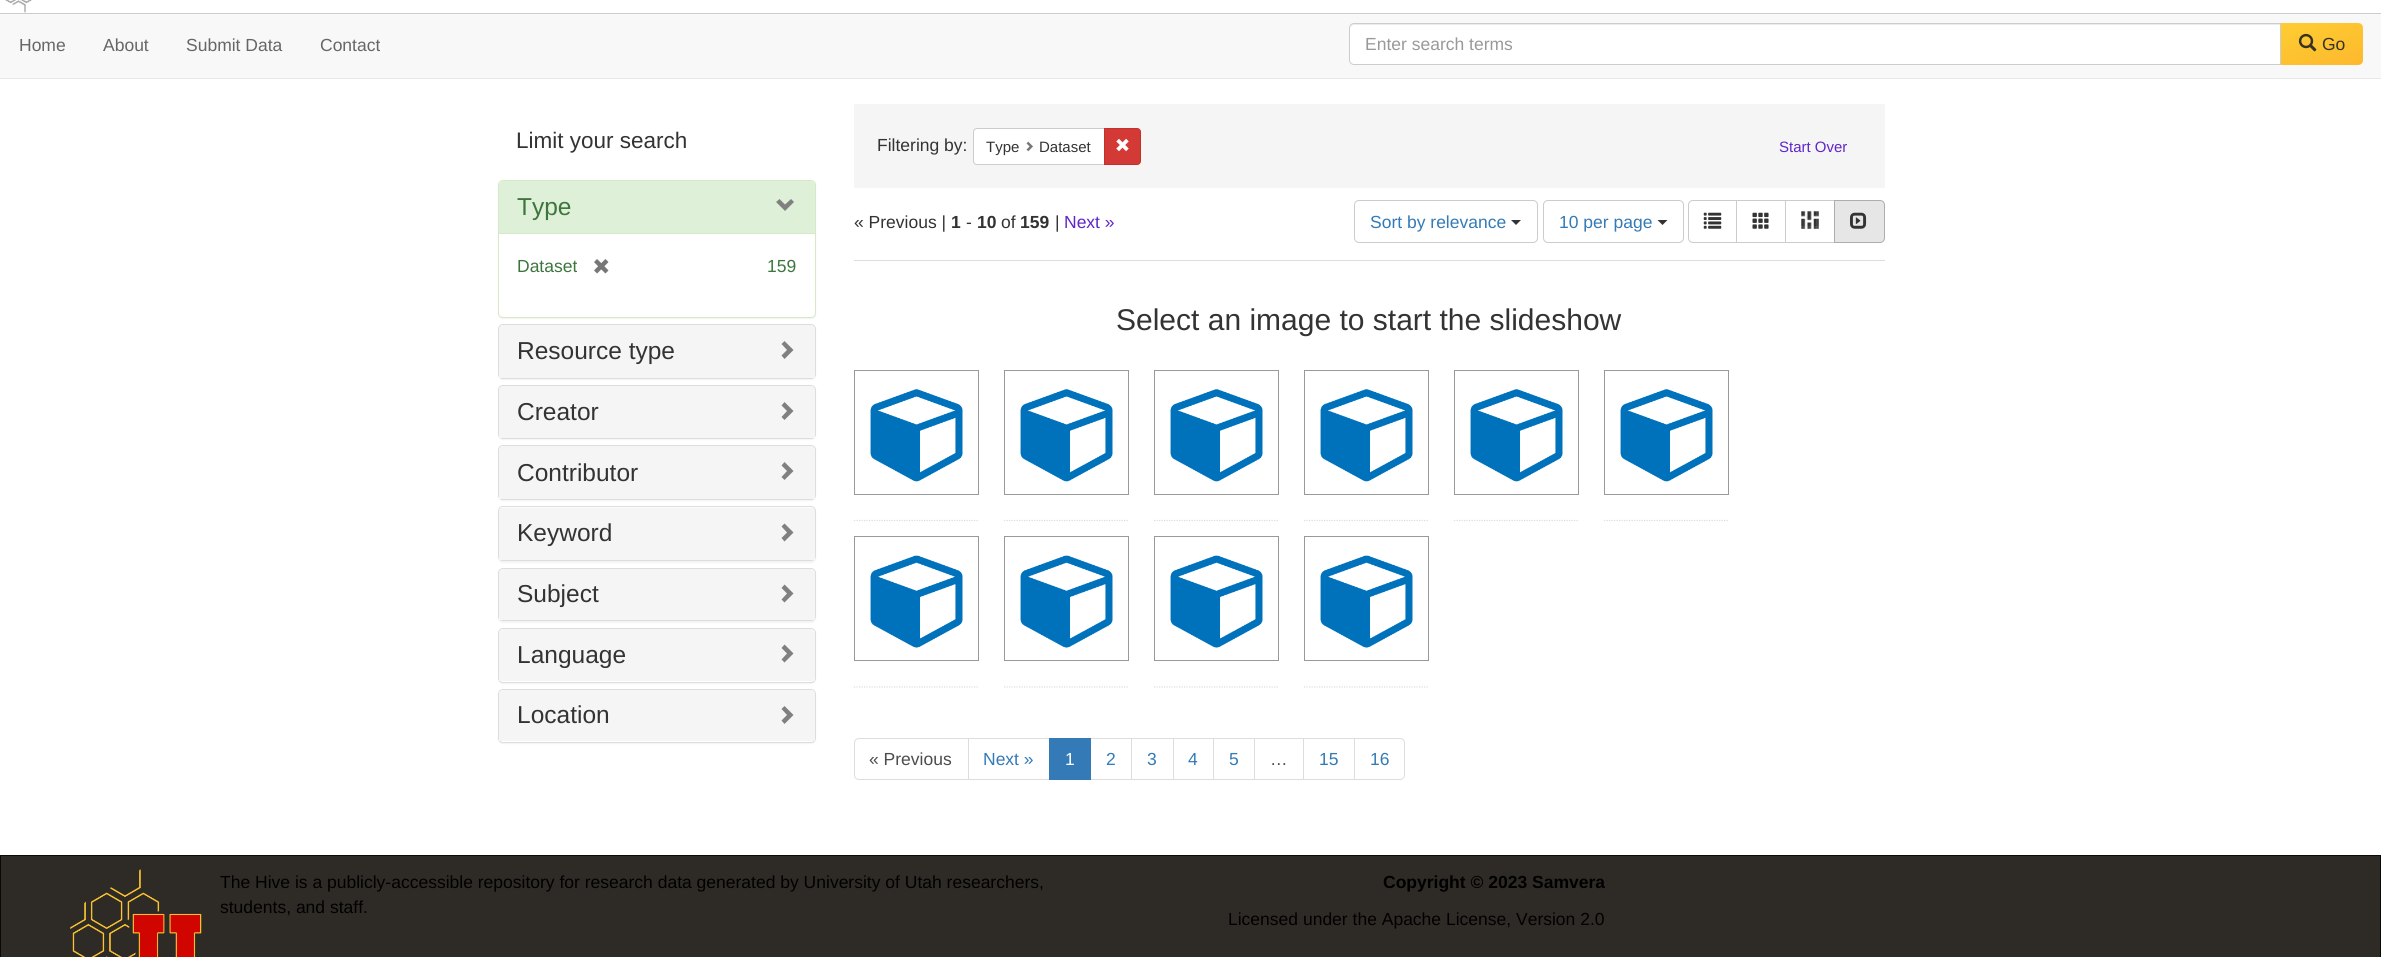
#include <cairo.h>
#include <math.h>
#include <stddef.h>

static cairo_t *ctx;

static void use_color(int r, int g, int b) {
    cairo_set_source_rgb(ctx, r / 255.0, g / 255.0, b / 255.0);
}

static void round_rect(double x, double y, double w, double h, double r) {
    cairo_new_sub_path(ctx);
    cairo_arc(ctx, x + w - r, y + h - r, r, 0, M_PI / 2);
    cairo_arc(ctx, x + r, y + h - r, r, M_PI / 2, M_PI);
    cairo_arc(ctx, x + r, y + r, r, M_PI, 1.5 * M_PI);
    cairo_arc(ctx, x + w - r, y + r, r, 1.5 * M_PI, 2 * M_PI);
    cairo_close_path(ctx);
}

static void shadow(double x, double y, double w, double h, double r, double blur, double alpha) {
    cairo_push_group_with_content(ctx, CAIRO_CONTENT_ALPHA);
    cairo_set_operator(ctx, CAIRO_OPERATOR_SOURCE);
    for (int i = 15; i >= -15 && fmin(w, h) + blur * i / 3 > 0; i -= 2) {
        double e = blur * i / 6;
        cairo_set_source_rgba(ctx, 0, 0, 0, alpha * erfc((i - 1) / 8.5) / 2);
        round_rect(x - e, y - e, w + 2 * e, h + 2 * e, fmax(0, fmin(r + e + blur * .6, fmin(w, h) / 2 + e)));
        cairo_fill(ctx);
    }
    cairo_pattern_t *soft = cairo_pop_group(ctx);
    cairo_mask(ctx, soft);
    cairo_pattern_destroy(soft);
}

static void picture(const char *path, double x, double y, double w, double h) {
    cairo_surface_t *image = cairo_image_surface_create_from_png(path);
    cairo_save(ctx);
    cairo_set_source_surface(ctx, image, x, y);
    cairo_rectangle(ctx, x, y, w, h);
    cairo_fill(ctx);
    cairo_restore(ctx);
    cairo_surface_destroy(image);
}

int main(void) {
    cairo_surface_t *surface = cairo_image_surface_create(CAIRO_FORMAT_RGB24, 2381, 957);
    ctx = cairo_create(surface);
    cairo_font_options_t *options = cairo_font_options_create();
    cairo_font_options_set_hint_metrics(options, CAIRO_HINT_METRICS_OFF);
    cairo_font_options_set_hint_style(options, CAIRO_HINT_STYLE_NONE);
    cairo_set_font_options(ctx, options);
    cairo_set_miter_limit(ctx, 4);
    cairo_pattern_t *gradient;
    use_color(255, 255, 255);
    cairo_paint(ctx);
    use_color(204, 204, 204);
    cairo_rectangle(ctx, 0, 13, 2381, 1);
    cairo_fill(ctx);
    picture("img1.png", 5, 0, 27, 13);
    use_color(248, 248, 248);
    cairo_rectangle(ctx, 0, 14, 2381, 64);
    cairo_fill(ctx);
    use_color(231, 231, 231);
    cairo_rectangle(ctx, 0, 78, 2381, 1);
    cairo_fill(ctx);
    cairo_select_font_face(ctx, "Liberation Sans", CAIRO_FONT_SLANT_NORMAL, CAIRO_FONT_WEIGHT_NORMAL);
    cairo_set_font_size(ctx, 17.5);
    use_color(102, 102, 102);
    cairo_move_to(ctx, 19, 51);
    cairo_show_text(ctx, "Home");
    cairo_move_to(ctx, 103, 51);
    cairo_show_text(ctx, "About");
    cairo_move_to(ctx, 186, 51);
    cairo_show_text(ctx, "Submit Data");
    cairo_move_to(ctx, 320, 51);
    cairo_show_text(ctx, "Contact");
    use_color(255, 255, 255);
    cairo_new_path(ctx);
    cairo_move_to(ctx, 1354, 23);
    cairo_line_to(ctx, 2281, 23);
    cairo_line_to(ctx, 2281, 65);
    cairo_line_to(ctx, 1354, 65);
    cairo_curve_to(ctx, 1351, 65, 1349, 63, 1349, 60);
    cairo_line_to(ctx, 1349, 28);
    cairo_curve_to(ctx, 1349, 25, 1351, 23, 1354, 23);
    cairo_close_path(ctx);
    cairo_fill(ctx);
    use_color(236, 236, 236);
    cairo_new_path(ctx);
    cairo_move_to(ctx, 1354, 25);
    cairo_line_to(ctx, 2280, 25);
    cairo_line_to(ctx, 2280, 24);
    cairo_line_to(ctx, 1354, 24);
    cairo_curve_to(ctx, 1351, 24, 1350, 26, 1350, 29);
    cairo_curve_to(ctx, 1350, 27, 1352, 25, 1354, 25);
    cairo_close_path(ctx);
    cairo_fill(ctx);
    cairo_new_path(ctx);
    cairo_move_to(ctx, 1354, 23.5);
    cairo_line_to(ctx, 2280.5, 23.5);
    cairo_line_to(ctx, 2280.5, 64.5);
    cairo_line_to(ctx, 1354, 64.5);
    cairo_curve_to(ctx, 1351.5, 64.5, 1349.5, 62.5, 1349.5, 60);
    cairo_line_to(ctx, 1349.5, 28);
    cairo_curve_to(ctx, 1349.5, 25.5, 1351.5, 23.5, 1354, 23.5);
    cairo_close_path(ctx);
    use_color(204, 204, 204);
    cairo_set_line_width(ctx, 1);
    cairo_stroke(ctx);
    use_color(153, 153, 153);
    cairo_move_to(ctx, 1365, 50);
    cairo_show_text(ctx, "Enter search terms");
    gradient = cairo_pattern_create_linear(2310, 12, 2334, 76);
    cairo_pattern_add_color_stop_rgba(gradient, 0, 0.996, 0.804, 0.196, 1);
    cairo_pattern_add_color_stop_rgba(gradient, 1, 0.992, 0.722, 0.18, 1);
    cairo_set_source(ctx, gradient);
    cairo_pattern_destroy(gradient);
    cairo_new_path(ctx);
    cairo_move_to(ctx, 2281, 23);
    cairo_line_to(ctx, 2358, 23);
    cairo_curve_to(ctx, 2361, 23, 2363, 25, 2363, 28);
    cairo_line_to(ctx, 2363, 60);
    cairo_curve_to(ctx, 2363, 63, 2361, 65, 2358, 65);
    cairo_line_to(ctx, 2281, 65);
    cairo_close_path(ctx);
    cairo_fill(ctx);
    picture("img2.png", 2298, 33, 19, 19);
    use_color(55, 50, 35);
    cairo_move_to(ctx, 2322, 50);
    cairo_show_text(ctx, "Go");
    cairo_set_font_size(ctx, 22.5);
    use_color(51, 51, 51);
    cairo_move_to(ctx, 516, 148);
    cairo_show_text(ctx, "Limit your search");
    use_color(0, 0, 0);
    shadow(498, 181, 318, 138, 5, 0.5, 0.05);
    use_color(255, 255, 255);
    round_rect(498.5, 180.5, 317, 137, 4.5);
    cairo_fill_preserve(ctx);
    use_color(214, 233, 198);
    cairo_stroke(ctx);
    use_color(223, 240, 216);
    cairo_new_path(ctx);
    cairo_move_to(ctx, 503, 181);
    cairo_line_to(ctx, 811, 181);
    cairo_curve_to(ctx, 813, 181, 815, 183, 815, 185);
    cairo_line_to(ctx, 815, 233);
    cairo_line_to(ctx, 499, 233);
    cairo_line_to(ctx, 499, 185);
    cairo_curve_to(ctx, 499, 183, 501, 181, 503, 181);
    cairo_close_path(ctx);
    cairo_fill(ctx);
    cairo_set_font_size(ctx, 24.5);
    use_color(60, 118, 61);
    cairo_move_to(ctx, 517, 215);
    cairo_show_text(ctx, "Type");
    use_color(128, 128, 128);
    cairo_new_path(ctx);
    cairo_move_to(ctx, 794, 202);
    cairo_line_to(ctx, 785, 211);
    cairo_line_to(ctx, 776, 202);
    cairo_line_to(ctx, 779.5, 199);
    cairo_line_to(ctx, 785, 204.5);
    cairo_line_to(ctx, 791, 199);
    cairo_close_path(ctx);
    cairo_fill(ctx);
    use_color(214, 233, 198);
    cairo_rectangle(ctx, 499, 233, 316, 1);
    cairo_fill(ctx);
    cairo_set_font_size(ctx, 17.5);
    use_color(60, 118, 61);
    cairo_move_to(ctx, 517, 272);
    cairo_show_text(ctx, "Dataset");
    picture("img3.png", 594, 259, 15, 15);
    cairo_move_to(ctx, 767, 272);
    cairo_show_text(ctx, "159");
    use_color(0, 0, 0);
    shadow(498, 325, 318, 55, 5, 0.5, 0.05);
    round_rect(498.5, 324.5, 317, 54, 4.5);
    use_color(221, 221, 221);
    cairo_stroke(ctx);
    use_color(245, 245, 245);
    cairo_new_path(ctx);
    cairo_move_to(ctx, 503, 325);
    cairo_line_to(ctx, 811, 325);
    cairo_curve_to(ctx, 813, 325, 815, 327, 815, 329);
    cairo_line_to(ctx, 815, 378);
    cairo_line_to(ctx, 499, 378);
    cairo_line_to(ctx, 499, 329);
    cairo_curve_to(ctx, 499, 327, 501, 325, 503, 325);
    cairo_close_path(ctx);
    cairo_fill(ctx);
    cairo_set_font_size(ctx, 24.5);
    use_color(51, 51, 51);
    cairo_move_to(ctx, 517, 359);
    cairo_show_text(ctx, "Resource type");
    use_color(128, 128, 128);
    cairo_new_path(ctx);
    cairo_move_to(ctx, 793.5, 350);
    cairo_line_to(ctx, 784.5, 359);
    cairo_line_to(ctx, 781.5, 355.5);
    cairo_line_to(ctx, 787, 350);
    cairo_line_to(ctx, 781.5, 344);
    cairo_line_to(ctx, 784.5, 341);
    cairo_close_path(ctx);
    cairo_fill(ctx);
    use_color(0, 0, 0);
    shadow(498, 386, 318, 54, 5, 0.5, 0.05);
    round_rect(498.5, 385.5, 317, 53, 4.5);
    use_color(221, 221, 221);
    cairo_stroke(ctx);
    use_color(245, 245, 245);
    cairo_new_path(ctx);
    cairo_move_to(ctx, 503, 386);
    cairo_line_to(ctx, 811, 386);
    cairo_curve_to(ctx, 813, 386, 815, 388, 815, 390);
    cairo_line_to(ctx, 815, 438);
    cairo_line_to(ctx, 499, 438);
    cairo_line_to(ctx, 499, 390);
    cairo_curve_to(ctx, 499, 388, 501, 386, 503, 386);
    cairo_close_path(ctx);
    cairo_fill(ctx);
    use_color(51, 51, 51);
    cairo_move_to(ctx, 517, 420);
    cairo_show_text(ctx, "Creator");
    use_color(128, 128, 128);
    cairo_new_path(ctx);
    cairo_move_to(ctx, 793.5, 411);
    cairo_line_to(ctx, 784.5, 420);
    cairo_line_to(ctx, 781.5, 417);
    cairo_line_to(ctx, 787, 411);
    cairo_line_to(ctx, 781.5, 405.5);
    cairo_line_to(ctx, 784.5, 402);
    cairo_close_path(ctx);
    cairo_fill(ctx);
    use_color(0, 0, 0);
    shadow(498, 446, 318, 55, 5, 0.5, 0.05);
    round_rect(498.5, 445.5, 317, 54, 4.5);
    use_color(221, 221, 221);
    cairo_stroke(ctx);
    use_color(245, 245, 245);
    cairo_new_path(ctx);
    cairo_move_to(ctx, 503, 446);
    cairo_line_to(ctx, 811, 446);
    cairo_curve_to(ctx, 813, 446, 815, 448, 815, 450);
    cairo_line_to(ctx, 815, 499);
    cairo_line_to(ctx, 499, 499);
    cairo_line_to(ctx, 499, 450);
    cairo_curve_to(ctx, 499, 448, 501, 446, 503, 446);
    cairo_close_path(ctx);
    cairo_fill(ctx);
    use_color(51, 51, 51);
    cairo_move_to(ctx, 517, 481);
    cairo_show_text(ctx, "Contributor");
    use_color(128, 128, 128);
    cairo_new_path(ctx);
    cairo_move_to(ctx, 793.5, 471);
    cairo_line_to(ctx, 784.5, 480);
    cairo_line_to(ctx, 781.5, 477);
    cairo_line_to(ctx, 787, 471);
    cairo_line_to(ctx, 781.5, 465.5);
    cairo_line_to(ctx, 784.5, 462);
    cairo_close_path(ctx);
    cairo_fill(ctx);
    use_color(0, 0, 0);
    shadow(498, 508, 318, 55, 5, 0.5, 0.05);
    round_rect(498.5, 506.5, 317, 54, 4.5);
    use_color(221, 221, 221);
    cairo_stroke(ctx);
    use_color(245, 245, 245);
    cairo_new_path(ctx);
    cairo_move_to(ctx, 503, 508);
    cairo_line_to(ctx, 811, 508);
    cairo_curve_to(ctx, 813, 508, 815, 510, 815, 512);
    cairo_line_to(ctx, 815, 560);
    cairo_line_to(ctx, 499, 560);
    cairo_line_to(ctx, 499, 512);
    cairo_curve_to(ctx, 499, 510, 501, 508, 503, 508);
    cairo_close_path(ctx);
    cairo_fill(ctx);
    use_color(51, 51, 51);
    cairo_move_to(ctx, 517, 541);
    cairo_show_text(ctx, "Keyword");
    use_color(128, 128, 128);
    cairo_new_path(ctx);
    cairo_move_to(ctx, 793.5, 532.5);
    cairo_line_to(ctx, 784.5, 541.5);
    cairo_line_to(ctx, 781.5, 538);
    cairo_line_to(ctx, 787, 532.5);
    cairo_line_to(ctx, 781.5, 526.5);
    cairo_line_to(ctx, 784.5, 523.5);
    cairo_close_path(ctx);
    cairo_fill(ctx);
    use_color(0, 0, 0);
    shadow(498, 569, 318, 54, 5, 0.5, 0.05);
    round_rect(498.5, 568.5, 317, 52, 4.5);
    use_color(221, 221, 221);
    cairo_stroke(ctx);
    use_color(245, 245, 245);
    cairo_new_path(ctx);
    cairo_move_to(ctx, 503, 569);
    cairo_line_to(ctx, 811, 569);
    cairo_curve_to(ctx, 813, 569, 815, 571, 815, 573);
    cairo_line_to(ctx, 815, 620);
    cairo_line_to(ctx, 499, 620);
    cairo_line_to(ctx, 499, 573);
    cairo_curve_to(ctx, 499, 571, 501, 569, 503, 569);
    cairo_close_path(ctx);
    cairo_fill(ctx);
    use_color(51, 51, 51);
    cairo_move_to(ctx, 517, 602);
    cairo_show_text(ctx, "Subject");
    use_color(128, 128, 128);
    cairo_new_path(ctx);
    cairo_move_to(ctx, 793.5, 593.5);
    cairo_line_to(ctx, 784.5, 602.5);
    cairo_line_to(ctx, 781.5, 599.5);
    cairo_line_to(ctx, 787, 593.5);
    cairo_line_to(ctx, 781.5, 588);
    cairo_line_to(ctx, 784.5, 584.5);
    cairo_close_path(ctx);
    cairo_fill(ctx);
    use_color(0, 0, 0);
    shadow(498, 629, 318, 55, 5, 0.5, 0.05);
    use_color(255, 255, 255);
    round_rect(498.5, 628.5, 317, 54, 4.5);
    cairo_fill_preserve(ctx);
    use_color(221, 221, 221);
    cairo_stroke(ctx);
    use_color(245, 245, 245);
    cairo_new_path(ctx);
    cairo_move_to(ctx, 503, 629);
    cairo_line_to(ctx, 811, 629);
    cairo_curve_to(ctx, 813, 629, 815, 631, 815, 633);
    cairo_line_to(ctx, 815, 681);
    cairo_line_to(ctx, 499, 681);
    cairo_line_to(ctx, 499, 633);
    cairo_curve_to(ctx, 499, 631, 501, 629, 503, 629);
    cairo_close_path(ctx);
    cairo_fill(ctx);
    use_color(51, 51, 51);
    cairo_move_to(ctx, 517, 663);
    cairo_show_text(ctx, "Language");
    use_color(128, 128, 128);
    cairo_new_path(ctx);
    cairo_move_to(ctx, 793.5, 653.5);
    cairo_line_to(ctx, 784.5, 662.5);
    cairo_line_to(ctx, 781.5, 659.5);
    cairo_line_to(ctx, 787, 653.5);
    cairo_line_to(ctx, 781.5, 648);
    cairo_line_to(ctx, 784.5, 644.5);
    cairo_close_path(ctx);
    cairo_fill(ctx);
    use_color(0, 0, 0);
    shadow(498, 690, 318, 54, 5, 0.5, 0.05);
    use_color(255, 255, 255);
    round_rect(498.5, 689.5, 317, 53, 4.5);
    cairo_fill_preserve(ctx);
    use_color(221, 221, 221);
    cairo_stroke(ctx);
    use_color(245, 245, 245);
    cairo_new_path(ctx);
    cairo_move_to(ctx, 503, 690);
    cairo_line_to(ctx, 811, 690);
    cairo_curve_to(ctx, 813, 690, 815, 692, 815, 694);
    cairo_line_to(ctx, 815, 741);
    cairo_line_to(ctx, 499, 741);
    cairo_line_to(ctx, 499, 694);
    cairo_curve_to(ctx, 499, 692, 501, 690, 503, 690);
    cairo_close_path(ctx);
    cairo_fill(ctx);
    use_color(51, 51, 51);
    cairo_move_to(ctx, 517, 723);
    cairo_show_text(ctx, "Location");
    use_color(128, 128, 128);
    cairo_new_path(ctx);
    cairo_move_to(ctx, 793.5, 715);
    cairo_line_to(ctx, 784.5, 724);
    cairo_line_to(ctx, 781.5, 720.5);
    cairo_line_to(ctx, 787, 715);
    cairo_line_to(ctx, 781.5, 709);
    cairo_line_to(ctx, 784.5, 706);
    cairo_close_path(ctx);
    cairo_fill(ctx);
    use_color(245, 245, 245);
    cairo_rectangle(ctx, 854, 104, 1031, 84);
    cairo_fill(ctx);
    cairo_set_font_size(ctx, 17.5);
    use_color(51, 51, 51);
    cairo_move_to(ctx, 877, 151);
    cairo_show_text(ctx, "Filtering by:");
    use_color(255, 255, 255);
    cairo_new_path(ctx);
    cairo_move_to(ctx, 977, 128.5);
    cairo_line_to(ctx, 1104.5, 128.5);
    cairo_line_to(ctx, 1104.5, 164.5);
    cairo_line_to(ctx, 977, 164.5);
    cairo_curve_to(ctx, 975, 164.5, 973.5, 163, 973.5, 161);
    cairo_line_to(ctx, 973.5, 132);
    cairo_curve_to(ctx, 973.5, 130, 975, 128.5, 977, 128.5);
    cairo_close_path(ctx);
    cairo_fill_preserve(ctx);
    use_color(204, 204, 204);
    cairo_stroke(ctx);
    cairo_set_font_size(ctx, 15);
    use_color(51, 51, 51);
    cairo_move_to(ctx, 986, 152);
    cairo_show_text(ctx, "Type");
    picture("img4.png", 1026, 141, 7, 11);
    cairo_move_to(ctx, 1039, 152);
    cairo_show_text(ctx, "Dataset");
    use_color(211, 58, 53);
    cairo_new_path(ctx);
    cairo_move_to(ctx, 1104.5, 128.5);
    cairo_line_to(ctx, 1137, 128.5);
    cairo_curve_to(ctx, 1139, 128.5, 1140.5, 130, 1140.5, 132);
    cairo_line_to(ctx, 1140.5, 161);
    cairo_curve_to(ctx, 1140.5, 163, 1139, 164.5, 1137, 164.5);
    cairo_line_to(ctx, 1104.5, 164.5);
    cairo_close_path(ctx);
    cairo_fill_preserve(ctx);
    use_color(196, 48, 43);
    cairo_stroke(ctx);
    picture("img5.png", 1116, 138, 13, 14);
    use_color(95, 38, 201);
    cairo_move_to(ctx, 1779, 152);
    cairo_show_text(ctx, "Start Over");
    use_color(221, 221, 221);
    cairo_rectangle(ctx, 854, 260, 1031, 1);
    cairo_fill(ctx);
    cairo_set_font_size(ctx, 17.5);
    use_color(51, 51, 51);
    cairo_move_to(ctx, 854, 228);
    cairo_show_text(ctx, "« Previous |");
    cairo_select_font_face(ctx, "Liberation Sans", CAIRO_FONT_SLANT_NORMAL, CAIRO_FONT_WEIGHT_BOLD);
    cairo_move_to(ctx, 951, 228);
    cairo_show_text(ctx, "1");
    cairo_select_font_face(ctx, "Liberation Sans", CAIRO_FONT_SLANT_NORMAL, CAIRO_FONT_WEIGHT_NORMAL);
    cairo_move_to(ctx, 966, 228);
    cairo_show_text(ctx, "-");
    cairo_select_font_face(ctx, "Liberation Sans", CAIRO_FONT_SLANT_NORMAL, CAIRO_FONT_WEIGHT_BOLD);
    cairo_move_to(ctx, 977, 228);
    cairo_show_text(ctx, "10");
    cairo_select_font_face(ctx, "Liberation Sans", CAIRO_FONT_SLANT_NORMAL, CAIRO_FONT_WEIGHT_NORMAL);
    cairo_move_to(ctx, 1001, 228);
    cairo_show_text(ctx, "of");
    cairo_select_font_face(ctx, "Liberation Sans", CAIRO_FONT_SLANT_NORMAL, CAIRO_FONT_WEIGHT_BOLD);
    cairo_move_to(ctx, 1020, 228);
    cairo_show_text(ctx, "159");
    cairo_select_font_face(ctx, "Liberation Sans", CAIRO_FONT_SLANT_NORMAL, CAIRO_FONT_WEIGHT_NORMAL);
    cairo_move_to(ctx, 1055, 228);
    cairo_show_text(ctx, "|");
    use_color(95, 38, 201);
    cairo_move_to(ctx, 1064, 228);
    cairo_show_text(ctx, "Next »");
    round_rect(1354.5, 200.5, 183, 42, 4.5);
    use_color(204, 204, 204);
    cairo_stroke(ctx);
    use_color(51, 122, 183);
    cairo_move_to(ctx, 1370, 228);
    cairo_show_text(ctx, "Sort by relevance");
    use_color(51, 51, 51);
    cairo_new_path(ctx);
    cairo_move_to(ctx, 1511, 220);
    cairo_line_to(ctx, 1521, 220);
    cairo_line_to(ctx, 1516, 225);
    cairo_close_path(ctx);
    cairo_fill(ctx);
    round_rect(1543.5, 200.5, 140, 42, 4.5);
    use_color(204, 204, 204);
    cairo_stroke(ctx);
    use_color(51, 122, 183);
    cairo_move_to(ctx, 1559, 228);
    cairo_show_text(ctx, "10 per page");
    use_color(51, 51, 51);
    cairo_new_path(ctx);
    cairo_move_to(ctx, 1657.5, 220);
    cairo_line_to(ctx, 1667.5, 220);
    cairo_line_to(ctx, 1662.5, 225);
    cairo_close_path(ctx);
    cairo_fill(ctx);
    cairo_new_path(ctx);
    cairo_move_to(ctx, 1693, 200.5);
    cairo_line_to(ctx, 1737.5, 200.5);
    cairo_line_to(ctx, 1737.5, 242.5);
    cairo_line_to(ctx, 1693, 242.5);
    cairo_curve_to(ctx, 1690.5, 242.5, 1688.5, 240.5, 1688.5, 238);
    cairo_line_to(ctx, 1688.5, 205);
    cairo_curve_to(ctx, 1688.5, 202.5, 1690.5, 200.5, 1693, 200.5);
    cairo_close_path(ctx);
    use_color(204, 204, 204);
    cairo_stroke(ctx);
    picture("img6.png", 1703, 212, 19, 17);
    use_color(255, 255, 255);
    cairo_rectangle(ctx, 1737, 201, 1, 41);
    cairo_fill(ctx);
    cairo_rectangle(ctx, 1736.5, 200.5, 49, 42);
    use_color(204, 204, 204);
    cairo_stroke(ctx);
    picture("img7.png", 1752, 212, 17, 17);
    cairo_rectangle(ctx, 1785.5, 200.5, 49, 42);
    cairo_stroke(ctx);
    picture("img8.png", 1801, 211, 18, 18);
    use_color(230, 230, 230);
    cairo_new_path(ctx);
    cairo_move_to(ctx, 1834.5, 200.5);
    cairo_line_to(ctx, 1880, 200.5);
    cairo_curve_to(ctx, 1882.5, 200.5, 1884.5, 202.5, 1884.5, 205);
    cairo_line_to(ctx, 1884.5, 238);
    cairo_curve_to(ctx, 1884.5, 240.5, 1882.5, 242.5, 1880, 242.5);
    cairo_line_to(ctx, 1834.5, 242.5);
    cairo_close_path(ctx);
    cairo_fill_preserve(ctx);
    use_color(173, 173, 173);
    cairo_stroke(ctx);
    picture("img9.png", 1850, 212, 17, 17);
    cairo_set_font_size(ctx, 30);
    use_color(51, 51, 51);
    cairo_move_to(ctx, 1116, 330);
    cairo_show_text(ctx, "Select an image to start the slideshow");
    cairo_new_path(ctx);
    cairo_move_to(ctx, 854, 520.5);
    cairo_line_to(ctx, 979, 520.5);
    use_color(221, 221, 221);
    cairo_set_line_width(ctx, 1.2);
    cairo_set_dash(ctx, (double[]){1.25, 1.25}, 2, 0);
    cairo_stroke(ctx);
    cairo_rectangle(ctx, 854.5, 370.5, 124, 124);
    use_color(153, 153, 153);
    cairo_set_line_width(ctx, 1);
    cairo_set_dash(ctx, NULL, 0, 0);
    cairo_stroke(ctx);
    picture("img10.png", 870, 389, 93, 93);
    cairo_new_path(ctx);
    cairo_move_to(ctx, 1004, 520.5);
    cairo_line_to(ctx, 1129, 520.5);
    use_color(221, 221, 221);
    cairo_set_line_width(ctx, 1.2);
    cairo_set_dash(ctx, (double[]){1.25, 1.25}, 2, 0);
    cairo_stroke(ctx);
    cairo_rectangle(ctx, 1004.5, 370.5, 124, 124);
    use_color(153, 153, 153);
    cairo_set_line_width(ctx, 1);
    cairo_set_dash(ctx, NULL, 0, 0);
    cairo_stroke(ctx);
    picture("img10.png", 1020, 389, 93, 93);
    cairo_new_path(ctx);
    cairo_move_to(ctx, 1154, 520.5);
    cairo_line_to(ctx, 1279, 520.5);
    use_color(221, 221, 221);
    cairo_set_line_width(ctx, 1.2);
    cairo_set_dash(ctx, (double[]){1.25, 1.25}, 2, 0);
    cairo_stroke(ctx);
    cairo_rectangle(ctx, 1154.5, 370.5, 124, 124);
    use_color(153, 153, 153);
    cairo_set_line_width(ctx, 1);
    cairo_set_dash(ctx, NULL, 0, 0);
    cairo_stroke(ctx);
    picture("img10.png", 1170, 389, 93, 93);
    cairo_new_path(ctx);
    cairo_move_to(ctx, 1304, 520.5);
    cairo_line_to(ctx, 1429, 520.5);
    use_color(221, 221, 221);
    cairo_set_line_width(ctx, 1.2);
    cairo_set_dash(ctx, (double[]){1.25, 1.25}, 2, 0);
    cairo_stroke(ctx);
    cairo_rectangle(ctx, 1304.5, 370.5, 124, 124);
    use_color(153, 153, 153);
    cairo_set_line_width(ctx, 1);
    cairo_set_dash(ctx, NULL, 0, 0);
    cairo_stroke(ctx);
    picture("img10.png", 1320, 389, 93, 93);
    cairo_new_path(ctx);
    cairo_move_to(ctx, 1454, 520.5);
    cairo_line_to(ctx, 1579, 520.5);
    use_color(221, 221, 221);
    cairo_set_line_width(ctx, 1.2);
    cairo_set_dash(ctx, (double[]){1.25, 1.25}, 2, 0);
    cairo_stroke(ctx);
    cairo_rectangle(ctx, 1454.5, 370.5, 124, 124);
    use_color(153, 153, 153);
    cairo_set_line_width(ctx, 1);
    cairo_set_dash(ctx, NULL, 0, 0);
    cairo_stroke(ctx);
    picture("img10.png", 1470, 389, 93, 93);
    cairo_new_path(ctx);
    cairo_move_to(ctx, 1604, 520.5);
    cairo_line_to(ctx, 1729, 520.5);
    use_color(221, 221, 221);
    cairo_set_line_width(ctx, 1.2);
    cairo_set_dash(ctx, (double[]){1.25, 1.25}, 2, 0);
    cairo_stroke(ctx);
    cairo_rectangle(ctx, 1604.5, 370.5, 124, 124);
    use_color(153, 153, 153);
    cairo_set_line_width(ctx, 1);
    cairo_set_dash(ctx, NULL, 0, 0);
    cairo_stroke(ctx);
    picture("img10.png", 1620, 389, 93, 93);
    cairo_new_path(ctx);
    cairo_move_to(ctx, 854, 687);
    cairo_line_to(ctx, 979, 687);
    use_color(221, 221, 221);
    cairo_set_line_width(ctx, 1.2);
    cairo_set_dash(ctx, (double[]){1.25, 1.25}, 2, 0);
    cairo_stroke(ctx);
    cairo_rectangle(ctx, 854.5, 536.5, 124, 124);
    use_color(153, 153, 153);
    cairo_set_line_width(ctx, 1);
    cairo_set_dash(ctx, NULL, 0, 0);
    cairo_stroke(ctx);
    picture("img11.png", 870, 555, 93, 93);
    cairo_new_path(ctx);
    cairo_move_to(ctx, 1004, 687);
    cairo_line_to(ctx, 1129, 687);
    use_color(221, 221, 221);
    cairo_set_line_width(ctx, 1.2);
    cairo_set_dash(ctx, (double[]){1.25, 1.25}, 2, 0);
    cairo_stroke(ctx);
    cairo_rectangle(ctx, 1004.5, 536.5, 124, 124);
    use_color(153, 153, 153);
    cairo_set_line_width(ctx, 1);
    cairo_set_dash(ctx, NULL, 0, 0);
    cairo_stroke(ctx);
    picture("img11.png", 1020, 555, 93, 93);
    cairo_new_path(ctx);
    cairo_move_to(ctx, 1154, 687);
    cairo_line_to(ctx, 1279, 687);
    use_color(221, 221, 221);
    cairo_set_line_width(ctx, 1.2);
    cairo_set_dash(ctx, (double[]){1.25, 1.25}, 2, 0);
    cairo_stroke(ctx);
    cairo_rectangle(ctx, 1154.5, 536.5, 124, 124);
    use_color(153, 153, 153);
    cairo_set_line_width(ctx, 1);
    cairo_set_dash(ctx, NULL, 0, 0);
    cairo_stroke(ctx);
    picture("img11.png", 1170, 555, 93, 93);
    cairo_new_path(ctx);
    cairo_move_to(ctx, 1304, 687);
    cairo_line_to(ctx, 1429, 687);
    use_color(221, 221, 221);
    cairo_set_line_width(ctx, 1.2);
    cairo_set_dash(ctx, (double[]){1.25, 1.25}, 2, 0);
    cairo_stroke(ctx);
    cairo_rectangle(ctx, 1304.5, 536.5, 124, 124);
    use_color(153, 153, 153);
    cairo_set_line_width(ctx, 1);
    cairo_set_dash(ctx, NULL, 0, 0);
    cairo_stroke(ctx);
    picture("img11.png", 1320, 555, 93, 93);
    cairo_new_path(ctx);
    cairo_move_to(ctx, 859, 738.5);
    cairo_line_to(ctx, 968.5, 738.5);
    cairo_line_to(ctx, 968.5, 779.5);
    cairo_line_to(ctx, 859, 779.5);
    cairo_curve_to(ctx, 856.5, 779.5, 854.5, 777.5, 854.5, 775);
    cairo_line_to(ctx, 854.5, 743);
    cairo_curve_to(ctx, 854.5, 740.5, 856.5, 738.5, 859, 738.5);
    cairo_close_path(ctx);
    use_color(221, 221, 221);
    cairo_stroke(ctx);
    cairo_set_font_size(ctx, 17.5);
    use_color(76, 76, 76);
    cairo_move_to(ctx, 869, 765);
    cairo_show_text(ctx, "« Previous");
    cairo_rectangle(ctx, 968.5, 738.5, 81, 41);
    use_color(221, 221, 221);
    cairo_stroke(ctx);
    use_color(51, 122, 183);
    cairo_move_to(ctx, 983, 765);
    cairo_show_text(ctx, "Next »");
    cairo_rectangle(ctx, 1090.5, 738.5, 42, 41);
    use_color(221, 221, 221);
    cairo_stroke(ctx);
    use_color(51, 122, 183);
    cairo_rectangle(ctx, 1049, 738, 42, 42);
    cairo_fill(ctx);
    use_color(255, 255, 255);
    cairo_move_to(ctx, 1065, 765);
    cairo_show_text(ctx, "1");
    use_color(51, 122, 183);
    cairo_move_to(ctx, 1106, 765);
    cairo_show_text(ctx, "2");
    use_color(255, 255, 255);
    cairo_rectangle(ctx, 1132, 739, 1, 40);
    cairo_fill(ctx);
    cairo_rectangle(ctx, 1131.5, 738.5, 42, 41);
    use_color(221, 221, 221);
    cairo_stroke(ctx);
    use_color(51, 122, 183);
    cairo_move_to(ctx, 1147, 765);
    cairo_show_text(ctx, "3");
    cairo_rectangle(ctx, 1173.5, 738.5, 40, 41);
    use_color(221, 221, 221);
    cairo_stroke(ctx);
    use_color(51, 122, 183);
    cairo_move_to(ctx, 1188, 765);
    cairo_show_text(ctx, "4");
    cairo_rectangle(ctx, 1213.5, 738.5, 41, 41);
    use_color(221, 221, 221);
    cairo_stroke(ctx);
    use_color(51, 122, 183);
    cairo_move_to(ctx, 1229, 765);
    cairo_show_text(ctx, "5");
    cairo_rectangle(ctx, 1254.5, 738.5, 49, 41);
    use_color(221, 221, 221);
    cairo_stroke(ctx);
    use_color(76, 76, 76);
    cairo_move_to(ctx, 1270, 765);
    cairo_show_text(ctx, "…");
    cairo_rectangle(ctx, 1303.5, 738.5, 51, 41);
    use_color(221, 221, 221);
    cairo_stroke(ctx);
    use_color(51, 122, 183);
    cairo_move_to(ctx, 1319, 765);
    cairo_show_text(ctx, "15");
    use_color(255, 255, 255);
    cairo_new_path(ctx);
    cairo_move_to(ctx, 1354.5, 738.5);
    cairo_line_to(ctx, 1400, 738.5);
    cairo_curve_to(ctx, 1402.5, 738.5, 1404.5, 740.5, 1404.5, 743);
    cairo_line_to(ctx, 1404.5, 775);
    cairo_curve_to(ctx, 1404.5, 777.5, 1402.5, 779.5, 1400, 779.5);
    cairo_line_to(ctx, 1354.5, 779.5);
    cairo_close_path(ctx);
    cairo_fill_preserve(ctx);
    use_color(221, 221, 221);
    cairo_stroke(ctx);
    use_color(51, 122, 183);
    cairo_move_to(ctx, 1370, 765);
    cairo_show_text(ctx, "16");
    use_color(46, 43, 39);
    cairo_rectangle(ctx, 0.5, 855.5, 2380, 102);
    cairo_fill_preserve(ctx);
    use_color(9, 9, 9);
    cairo_stroke(ctx);
    picture("img12.png", 70, 869, 132, 88);
    use_color(0, 0, 0);
    cairo_move_to(ctx, 220, 888);
    cairo_show_text(ctx, "The Hive is a publicly-accessible repository for research data generated by University of Utah researchers,");
    cairo_move_to(ctx, 220, 913);
    cairo_show_text(ctx, "students, and staff.");
    cairo_select_font_face(ctx, "Liberation Sans", CAIRO_FONT_SLANT_NORMAL, CAIRO_FONT_WEIGHT_BOLD);
    cairo_move_to(ctx, 1383, 888);
    cairo_show_text(ctx, "Copyright © 2023 Samvera");
    cairo_select_font_face(ctx, "Liberation Sans", CAIRO_FONT_SLANT_NORMAL, CAIRO_FONT_WEIGHT_NORMAL);
    cairo_move_to(ctx, 1228, 925);
    cairo_show_text(ctx, "Licensed under the Apache License, Version 2.0");
    cairo_surface_write_to_png(surface, "result.png");
    cairo_font_options_destroy(options);
    cairo_destroy(ctx);
    cairo_surface_destroy(surface);
    return 0;
}
